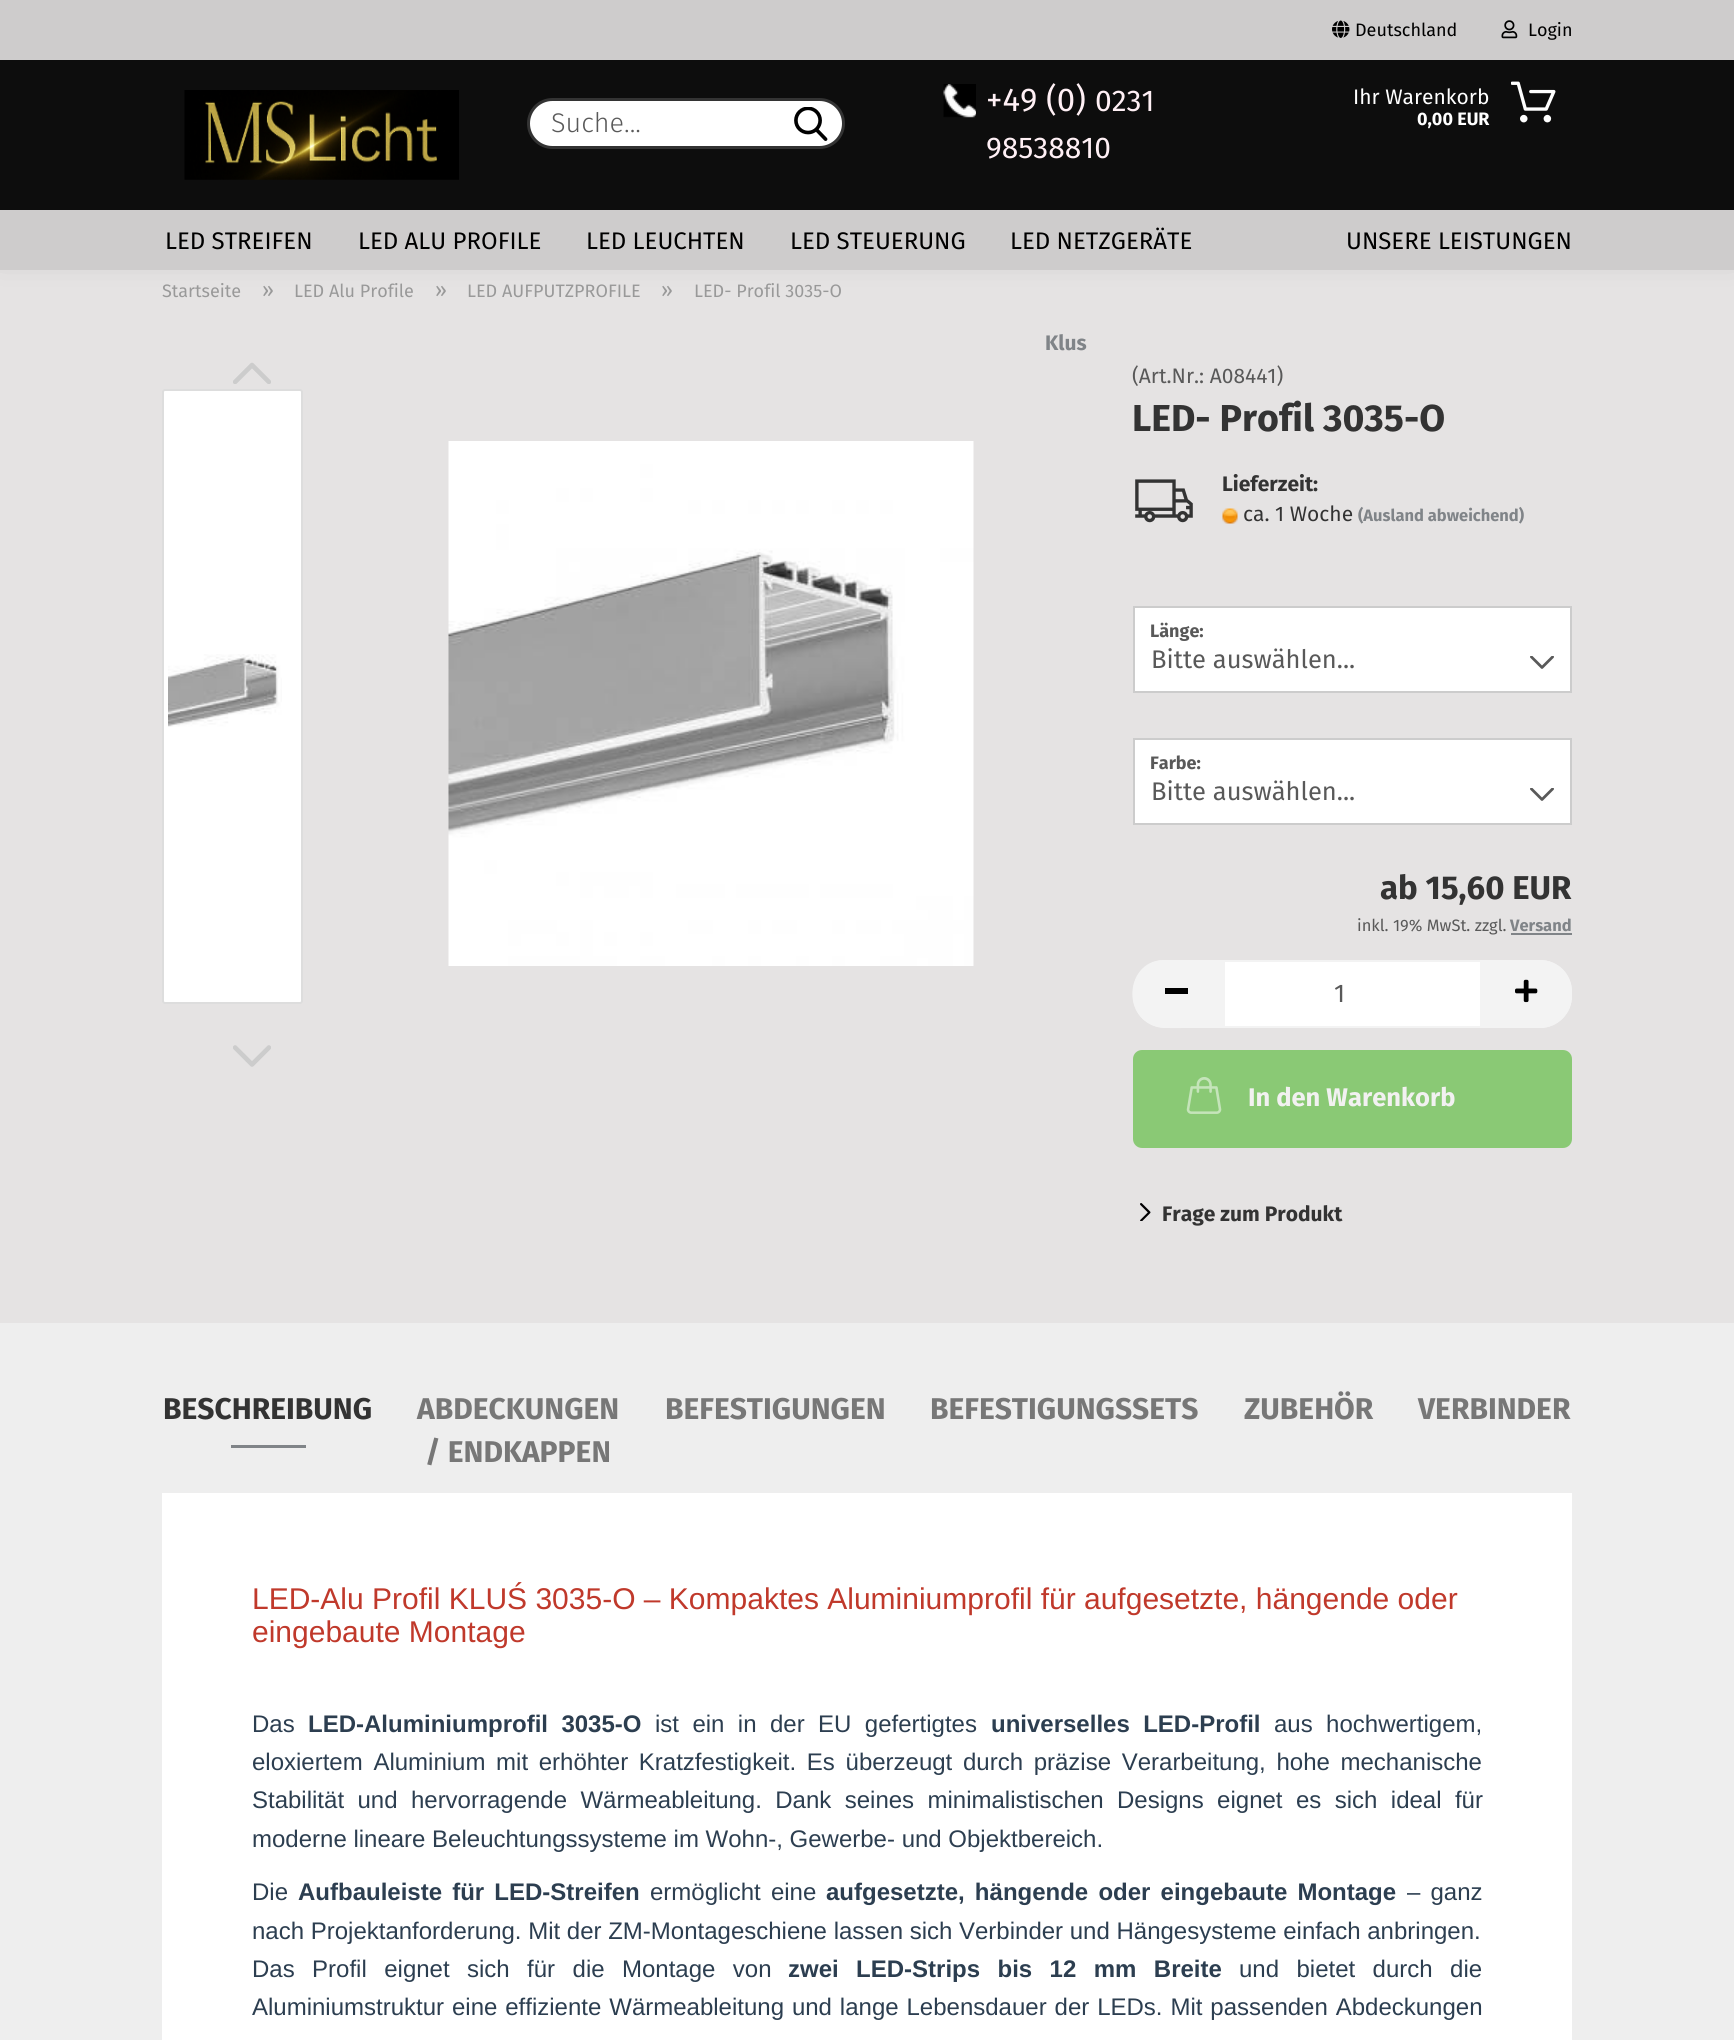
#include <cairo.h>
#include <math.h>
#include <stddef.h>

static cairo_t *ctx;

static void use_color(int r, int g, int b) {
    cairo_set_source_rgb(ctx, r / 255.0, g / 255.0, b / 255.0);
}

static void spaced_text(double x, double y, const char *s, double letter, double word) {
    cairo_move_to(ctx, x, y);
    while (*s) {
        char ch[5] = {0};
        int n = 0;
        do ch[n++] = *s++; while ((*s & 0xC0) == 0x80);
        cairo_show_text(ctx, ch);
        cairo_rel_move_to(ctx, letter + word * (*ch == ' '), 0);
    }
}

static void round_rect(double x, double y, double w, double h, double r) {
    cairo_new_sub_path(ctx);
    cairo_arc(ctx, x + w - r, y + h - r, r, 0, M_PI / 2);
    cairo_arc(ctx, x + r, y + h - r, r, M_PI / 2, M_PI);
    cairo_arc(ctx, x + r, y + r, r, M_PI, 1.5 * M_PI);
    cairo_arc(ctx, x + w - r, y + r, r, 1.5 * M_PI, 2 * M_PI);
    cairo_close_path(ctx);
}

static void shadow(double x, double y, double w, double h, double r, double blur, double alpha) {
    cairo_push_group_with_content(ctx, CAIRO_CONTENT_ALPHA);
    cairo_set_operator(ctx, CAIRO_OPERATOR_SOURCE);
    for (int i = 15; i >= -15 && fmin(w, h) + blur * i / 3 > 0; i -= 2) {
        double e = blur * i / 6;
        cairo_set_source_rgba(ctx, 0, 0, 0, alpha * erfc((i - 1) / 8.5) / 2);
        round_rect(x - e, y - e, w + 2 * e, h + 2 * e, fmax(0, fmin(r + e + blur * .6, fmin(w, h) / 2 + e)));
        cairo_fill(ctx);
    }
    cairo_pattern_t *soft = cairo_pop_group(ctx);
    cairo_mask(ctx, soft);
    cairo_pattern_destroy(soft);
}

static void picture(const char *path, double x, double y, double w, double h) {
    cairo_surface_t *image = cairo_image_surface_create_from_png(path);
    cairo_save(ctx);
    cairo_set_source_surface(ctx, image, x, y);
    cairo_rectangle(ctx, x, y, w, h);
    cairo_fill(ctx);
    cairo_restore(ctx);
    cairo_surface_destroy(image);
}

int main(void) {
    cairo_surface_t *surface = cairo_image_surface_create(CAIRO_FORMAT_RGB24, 1734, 2040);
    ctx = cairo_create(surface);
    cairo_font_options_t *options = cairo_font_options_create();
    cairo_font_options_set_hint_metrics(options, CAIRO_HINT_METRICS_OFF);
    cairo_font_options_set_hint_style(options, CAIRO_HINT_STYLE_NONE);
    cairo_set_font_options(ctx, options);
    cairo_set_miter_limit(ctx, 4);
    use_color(229, 227, 227);
    cairo_paint(ctx);
    use_color(0, 0, 0);
    shadow(0, 0, 1734, 246, 0, 19, 0.3);
    use_color(13, 13, 13);
    cairo_rectangle(ctx, 0, 60, 1734, 150);
    cairo_fill(ctx);
    use_color(206, 204, 204);
    cairo_rectangle(ctx, 0, 0, 1734, 60);
    cairo_fill(ctx);
    picture("img1.png", 1332, 20, 18, 18);
    cairo_select_font_face(ctx, "Fira Sans", CAIRO_FONT_SLANT_NORMAL, CAIRO_FONT_WEIGHT_NORMAL);
    cairo_set_font_size(ctx, 18);
    use_color(0, 0, 0);
    cairo_move_to(ctx, 1355, 36);
    cairo_show_text(ctx, "Deutschland");
    picture("img2.png", 1501, 20, 17, 19);
    cairo_move_to(ctx, 1528, 36);
    cairo_show_text(ctx, "Login");
    picture("img3.png", 184, 90, 275, 90);
    use_color(255, 255, 255);
    round_rect(528.5, 99.5, 315, 48, 24);
    cairo_fill_preserve(ctx);
    use_color(51, 51, 51);
    cairo_set_line_width(ctx, 3);
    cairo_stroke(ctx);
    cairo_select_font_face(ctx, "Fira Sans Light", CAIRO_FONT_SLANT_NORMAL, CAIRO_FONT_WEIGHT_NORMAL);
    cairo_set_font_size(ctx, 27);
    use_color(89, 89, 89);
    cairo_move_to(ctx, 551, 132);
    cairo_show_text(ctx, "Suche...");
    picture("img4.png", 794, 107, 34, 34);
    picture("img5.png", 943, 84, 33, 34);
    cairo_select_font_face(ctx, "Fira Sans", CAIRO_FONT_SLANT_NORMAL, CAIRO_FONT_WEIGHT_NORMAL);
    cairo_set_font_size(ctx, 33);
    use_color(255, 240, 245);
    cairo_move_to(ctx, 986, 111);
    cairo_show_text(ctx, "+49 (0)");
    cairo_set_font_size(ctx, 30);
    cairo_move_to(ctx, 1095, 111);
    cairo_show_text(ctx, "0231");
    cairo_move_to(ctx, 986, 158);
    cairo_show_text(ctx, "98538810");
    cairo_set_font_size(ctx, 21);
    use_color(255, 255, 255);
    cairo_move_to(ctx, 1353, 104);
    cairo_show_text(ctx, "Ihr Warenkorb");
    cairo_select_font_face(ctx, "Fira Sans", CAIRO_FONT_SLANT_NORMAL, CAIRO_FONT_WEIGHT_BOLD);
    cairo_set_font_size(ctx, 18);
    cairo_move_to(ctx, 1417, 125);
    cairo_show_text(ctx, "0,00 EUR");
    picture("img6.png", 1511, 81, 45, 42);
    use_color(206, 204, 204);
    cairo_rectangle(ctx, 0, 210, 1734, 60);
    cairo_fill(ctx);
    cairo_select_font_face(ctx, "Fira Sans", CAIRO_FONT_SLANT_NORMAL, CAIRO_FONT_WEIGHT_NORMAL);
    cairo_set_font_size(ctx, 24);
    use_color(0, 0, 0);
    cairo_move_to(ctx, 165, 249);
    cairo_show_text(ctx, "LED STREIFEN");
    cairo_move_to(ctx, 358, 249);
    cairo_show_text(ctx, "LED ALU PROFILE");
    cairo_move_to(ctx, 586, 249);
    cairo_show_text(ctx, "LED LEUCHTEN");
    cairo_move_to(ctx, 790, 249);
    cairo_show_text(ctx, "LED STEUERUNG");
    cairo_move_to(ctx, 1010, 249);
    cairo_show_text(ctx, "LED NETZGERÄTE");
    cairo_move_to(ctx, 1346, 249);
    cairo_show_text(ctx, "UNSERE LEISTUNGEN");
    cairo_set_font_size(ctx, 18);
    use_color(153, 153, 153);
    cairo_move_to(ctx, 162, 297);
    cairo_show_text(ctx, "Startseite");
    cairo_set_font_size(ctx, 21);
    cairo_move_to(ctx, 262, 297);
    cairo_show_text(ctx, "»");
    cairo_set_font_size(ctx, 18);
    cairo_move_to(ctx, 294, 297);
    cairo_show_text(ctx, "LED Alu Profile");
    cairo_set_font_size(ctx, 21);
    cairo_move_to(ctx, 435, 297);
    cairo_show_text(ctx, "»");
    cairo_set_font_size(ctx, 18);
    cairo_move_to(ctx, 467, 297);
    cairo_show_text(ctx, "LED AUFPUTZPROFILE");
    cairo_set_font_size(ctx, 21);
    cairo_move_to(ctx, 661, 297);
    cairo_show_text(ctx, "»");
    cairo_set_font_size(ctx, 18);
    cairo_move_to(ctx, 694, 297);
    cairo_show_text(ctx, "LED- Profil 3035-O");
    cairo_select_font_face(ctx, "Fira Sans", CAIRO_FONT_SLANT_NORMAL, CAIRO_FONT_WEIGHT_BOLD);
    cairo_set_font_size(ctx, 21);
    use_color(128, 132, 136);
    cairo_move_to(ctx, 1045, 350);
    cairo_show_text(ctx, "Klus");
    picture("img7.png", 233, 362, 38, 22);
    use_color(255, 255, 255);
    round_rect(163, 390, 139, 613, 2);
    cairo_fill_preserve(ctx);
    use_color(221, 221, 221);
    cairo_set_line_width(ctx, 2);
    cairo_stroke(ctx);
    picture("img8.png", 168, 654, 114, 73);
    picture("img9.png", 233, 1045, 38, 22);
    picture("img10.png", 448, 441, 526, 525);
    cairo_select_font_face(ctx, "Fira Sans", CAIRO_FONT_SLANT_NORMAL, CAIRO_FONT_WEIGHT_NORMAL);
    use_color(89, 89, 89);
    cairo_move_to(ctx, 1132, 383);
    cairo_show_text(ctx, "(Art.Nr.: A08441)");
    cairo_select_font_face(ctx, "Fira Sans", CAIRO_FONT_SLANT_NORMAL, CAIRO_FONT_WEIGHT_BOLD);
    cairo_set_font_size(ctx, 37.5);
    use_color(51, 51, 51);
    cairo_move_to(ctx, 1132, 431);
    cairo_show_text(ctx, "LED- Profil 3035-O");
    picture("img11.png", 1135, 479, 58, 44);
    cairo_set_font_size(ctx, 21);
    cairo_move_to(ctx, 1222, 491);
    cairo_show_text(ctx, "Lieferzeit:");
    picture("img12.png", 1222, 508, 16, 16);
    cairo_select_font_face(ctx, "Fira Sans", CAIRO_FONT_SLANT_NORMAL, CAIRO_FONT_WEIGHT_NORMAL);
    cairo_move_to(ctx, 1243, 521);
    cairo_show_text(ctx, "ca. 1 Woche");
    cairo_select_font_face(ctx, "Fira Sans", CAIRO_FONT_SLANT_NORMAL, CAIRO_FONT_WEIGHT_BOLD);
    cairo_set_font_size(ctx, 16.5);
    use_color(128, 132, 136);
    cairo_move_to(ctx, 1358, 521);
    cairo_show_text(ctx, "(Ausland abweichend)");
    use_color(255, 255, 255);
    cairo_rectangle(ctx, 1134, 607, 437, 85);
    cairo_fill_preserve(ctx);
    use_color(204, 204, 204);
    cairo_stroke(ctx);
    cairo_set_font_size(ctx, 18);
    use_color(89, 89, 89);
    cairo_move_to(ctx, 1150, 637);
    cairo_show_text(ctx, "Länge:");
    cairo_select_font_face(ctx, "Fira Sans", CAIRO_FONT_SLANT_NORMAL, CAIRO_FONT_WEIGHT_NORMAL);
    cairo_set_font_size(ctx, 25.5);
    cairo_move_to(ctx, 1151, 668);
    cairo_show_text(ctx, "Bitte auswählen...");
    picture("img13.png", 1530, 656, 24, 13);
    use_color(255, 255, 255);
    cairo_rectangle(ctx, 1134, 739, 437, 85);
    cairo_fill_preserve(ctx);
    use_color(204, 204, 204);
    cairo_stroke(ctx);
    cairo_select_font_face(ctx, "Fira Sans", CAIRO_FONT_SLANT_NORMAL, CAIRO_FONT_WEIGHT_BOLD);
    cairo_set_font_size(ctx, 18);
    use_color(89, 89, 89);
    cairo_move_to(ctx, 1150, 769);
    cairo_show_text(ctx, "Farbe:");
    cairo_select_font_face(ctx, "Fira Sans", CAIRO_FONT_SLANT_NORMAL, CAIRO_FONT_WEIGHT_NORMAL);
    cairo_set_font_size(ctx, 25.5);
    cairo_move_to(ctx, 1151, 800);
    cairo_show_text(ctx, "Bitte auswählen...");
    picture("img13.png", 1530, 788, 24, 13);
    cairo_select_font_face(ctx, "Fira Sans", CAIRO_FONT_SLANT_NORMAL, CAIRO_FONT_WEIGHT_BOLD);
    cairo_set_font_size(ctx, 33);
    use_color(51, 51, 51);
    cairo_move_to(ctx, 1380, 899);
    cairo_show_text(ctx, "ab 15,60 EUR");
    cairo_select_font_face(ctx, "Fira Sans", CAIRO_FONT_SLANT_NORMAL, CAIRO_FONT_WEIGHT_NORMAL);
    cairo_set_font_size(ctx, 16.5);
    use_color(89, 89, 89);
    cairo_move_to(ctx, 1357, 931);
    cairo_show_text(ctx, "inkl. 19% MwSt. zzgl.");
    cairo_select_font_face(ctx, "Fira Sans", CAIRO_FONT_SLANT_NORMAL, CAIRO_FONT_WEIGHT_BOLD);
    use_color(128, 132, 136);
    cairo_move_to(ctx, 1510, 931);
    cairo_show_text(ctx, "Versand");
    cairo_rectangle(ctx, 1511, 933, 61, 2);
    cairo_fill(ctx);
    use_color(243, 243, 243);
    cairo_new_path(ctx);
    cairo_move_to(ctx, 1165, 960);
    cairo_line_to(ctx, 1223, 960);
    cairo_line_to(ctx, 1223, 1028);
    cairo_line_to(ctx, 1165, 1028);
    cairo_curve_to(ctx, 1147.5, 1028, 1133, 1013.5, 1133, 996);
    cairo_line_to(ctx, 1133, 992);
    cairo_curve_to(ctx, 1133, 974.5, 1147.5, 960, 1165, 960);
    cairo_close_path(ctx);
    cairo_fill(ctx);
    cairo_set_fill_rule(ctx, CAIRO_FILL_RULE_EVEN_ODD);
    cairo_new_path(ctx);
    cairo_move_to(ctx, 1164, 960);
    cairo_line_to(ctx, 1222, 960);
    cairo_line_to(ctx, 1222, 1028);
    cairo_line_to(ctx, 1184, 1028);
    cairo_curve_to(ctx, 1173, 1028, 1162, 1029, 1152, 1025);
    cairo_curve_to(ctx, 1121, 1012, 1128, 960, 1164, 960);
    cairo_close_path(ctx);
    cairo_move_to(ctx, 1164, 962);
    cairo_line_to(ctx, 1222, 962);
    cairo_line_to(ctx, 1222, 1026);
    cairo_line_to(ctx, 1184, 1026);
    cairo_curve_to(ctx, 1173, 1026, 1162, 1028, 1152, 1024);
    cairo_curve_to(ctx, 1123, 1011, 1130, 962, 1164, 962);
    cairo_close_path(ctx);
    cairo_fill(ctx);
    use_color(0, 0, 0);
    cairo_rectangle(ctx, 1165, 988, 23, 6);
    cairo_fill(ctx);
    use_color(255, 255, 255);
    cairo_rectangle(ctx, 1224, 961, 257, 66);
    cairo_fill_preserve(ctx);
    use_color(243, 243, 243);
    cairo_stroke(ctx);
    cairo_select_font_face(ctx, "Fira Sans", CAIRO_FONT_SLANT_NORMAL, CAIRO_FONT_WEIGHT_NORMAL);
    cairo_set_font_size(ctx, 25.5);
    use_color(89, 89, 89);
    cairo_move_to(ctx, 1334, 1002);
    cairo_show_text(ctx, "1");
    use_color(243, 243, 243);
    cairo_new_path(ctx);
    cairo_move_to(ctx, 1482, 960);
    cairo_line_to(ctx, 1540, 960);
    cairo_curve_to(ctx, 1557.5, 960, 1572, 974.5, 1572, 992);
    cairo_line_to(ctx, 1572, 996);
    cairo_curve_to(ctx, 1572, 1013.5, 1557.5, 1028, 1540, 1028);
    cairo_line_to(ctx, 1482, 1028);
    cairo_close_path(ctx);
    cairo_fill(ctx);
    cairo_new_path(ctx);
    cairo_move_to(ctx, 1482, 960);
    cairo_line_to(ctx, 1540, 960);
    cairo_curve_to(ctx, 1558, 960, 1572, 974, 1572, 992);
    cairo_line_to(ctx, 1572, 996);
    cairo_curve_to(ctx, 1572, 1013, 1558, 1028, 1540, 1028);
    cairo_line_to(ctx, 1482, 1028);
    cairo_close_path(ctx);
    cairo_move_to(ctx, 1482, 962);
    cairo_line_to(ctx, 1540, 962);
    cairo_curve_to(ctx, 1557, 962, 1570, 975, 1570, 992);
    cairo_line_to(ctx, 1570, 996);
    cairo_curve_to(ctx, 1570, 1013, 1557, 1026, 1540, 1026);
    cairo_line_to(ctx, 1482, 1026);
    cairo_close_path(ctx);
    cairo_fill(ctx);
    picture("img14.png", 1515, 979, 23, 24);
    use_color(138, 201, 117);
    round_rect(1134, 1051, 437, 96, 8);
    cairo_fill_preserve(ctx);
    cairo_stroke(ctx);
    picture("img15.png", 1186, 1077, 36, 37);
    cairo_select_font_face(ctx, "Fira Sans", CAIRO_FONT_SLANT_NORMAL, CAIRO_FONT_WEIGHT_BOLD);
    use_color(242, 241, 241);
    cairo_move_to(ctx, 1248, 1106);
    cairo_show_text(ctx, "In den Warenkorb");
    picture("img16.png", 1140, 1203, 11, 18);
    cairo_set_font_size(ctx, 21);
    use_color(51, 51, 51);
    cairo_move_to(ctx, 1162, 1221);
    cairo_show_text(ctx, "Frage zum Produkt");
    use_color(238, 238, 238);
    cairo_rectangle(ctx, 0, 1323, 1734, 717);
    cairo_fill(ctx);
    cairo_set_font_size(ctx, 30);
    use_color(51, 51, 51);
    cairo_move_to(ctx, 163, 1419);
    cairo_show_text(ctx, "BESCHREIBUNG");
    use_color(128, 132, 136);
    cairo_rectangle(ctx, 231, 1445, 75, 3);
    cairo_fill(ctx);
    use_color(119, 119, 119);
    cairo_move_to(ctx, 417, 1419);
    cairo_show_text(ctx, "ABDECKUNGEN");
    cairo_move_to(ctx, 425, 1462);
    cairo_show_text(ctx, "/ ENDKAPPEN");
    cairo_move_to(ctx, 665, 1419);
    cairo_show_text(ctx, "BEFESTIGUNGEN");
    cairo_move_to(ctx, 930, 1419);
    cairo_show_text(ctx, "BEFESTIGUNGSSETS");
    cairo_move_to(ctx, 1244, 1419);
    cairo_show_text(ctx, "ZUBEHÖR");
    cairo_move_to(ctx, 1418, 1419);
    cairo_show_text(ctx, "VERBINDER");
    use_color(255, 255, 255);
    cairo_rectangle(ctx, 162, 1493, 1410, 547);
    cairo_fill(ctx);
    cairo_select_font_face(ctx, "Liberation Sans", CAIRO_FONT_SLANT_NORMAL, CAIRO_FONT_WEIGHT_NORMAL);
    use_color(192, 57, 43);
    cairo_move_to(ctx, 252, 1609);
    cairo_show_text(ctx, "LED-Alu Profil KLUŚ 3035-O – Kompaktes Aluminiumprofil für aufgesetzte, hängende oder");
    cairo_move_to(ctx, 252, 1642);
    cairo_show_text(ctx, "eingebaute Montage");
    cairo_set_font_size(ctx, 24);
    use_color(44, 62, 80);
    cairo_move_to(ctx, 252, 1732);
    cairo_show_text(ctx, "Das");
    cairo_select_font_face(ctx, "Liberation Sans", CAIRO_FONT_SLANT_NORMAL, CAIRO_FONT_WEIGHT_BOLD);
    spaced_text(308, 1732, "LED-Aluminiumprofil 3035-O", 0, 6.75);
    cairo_select_font_face(ctx, "Liberation Sans", CAIRO_FONT_SLANT_NORMAL, CAIRO_FONT_WEIGHT_NORMAL);
    spaced_text(655, 1732, "ist ein in der EU gefertigtes", 0, 6.75);
    cairo_select_font_face(ctx, "Liberation Sans", CAIRO_FONT_SLANT_NORMAL, CAIRO_FONT_WEIGHT_BOLD);
    spaced_text(991, 1732, "universelles LED-Profil", 0, 6.75);
    cairo_select_font_face(ctx, "Liberation Sans", CAIRO_FONT_SLANT_NORMAL, CAIRO_FONT_WEIGHT_NORMAL);
    spaced_text(1274, 1732, "aus hochwertigem,", 0, 6.75);
    spaced_text(252, 1770, "eloxiertem Aluminium mit erhöhter Kratzfestigkeit. Es überzeugt durch präzise Verarbeitung, hohe mechanische", 0, 4);
    spaced_text(252, 1808, "Stabilität und hervorragende Wärmeableitung. Dank seines minimalistischen Designs eignet es sich ideal für", 0, 6.75);
    cairo_move_to(ctx, 252, 1847);
    cairo_show_text(ctx, "moderne lineare Beleuchtungssysteme im Wohn-, Gewerbe- und Objektbereich.");
    cairo_move_to(ctx, 252, 1900);
    cairo_show_text(ctx, "Die");
    cairo_select_font_face(ctx, "Liberation Sans", CAIRO_FONT_SLANT_NORMAL, CAIRO_FONT_WEIGHT_BOLD);
    spaced_text(298, 1900, "Aufbauleiste für LED-Streifen", 0, 3.5);
    cairo_select_font_face(ctx, "Liberation Sans", CAIRO_FONT_SLANT_NORMAL, CAIRO_FONT_WEIGHT_NORMAL);
    spaced_text(650, 1900, "ermöglicht eine", 0, 3.5);
    cairo_select_font_face(ctx, "Liberation Sans", CAIRO_FONT_SLANT_NORMAL, CAIRO_FONT_WEIGHT_BOLD);
    spaced_text(826, 1900, "aufgesetzte, hängende oder eingebaute Montage", 0, 3.5);
    cairo_select_font_face(ctx, "Liberation Sans", CAIRO_FONT_SLANT_NORMAL, CAIRO_FONT_WEIGHT_NORMAL);
    spaced_text(1407, 1900, "– ganz", 0, 3.5);
    cairo_move_to(ctx, 252, 1939);
    cairo_show_text(ctx, "nach Projektanforderung. Mit der ZM-Montageschiene lassen sich Verbinder und Hängesysteme einfach anbringen.");
    spaced_text(252, 1977, "Das Profil eignet sich für die Montage von", 0, 10.75);
    cairo_select_font_face(ctx, "Liberation Sans", CAIRO_FONT_SLANT_NORMAL, CAIRO_FONT_WEIGHT_BOLD);
    spaced_text(788, 1977, "zwei LED-Strips bis 12 mm Breite", 0, 10.75);
    cairo_select_font_face(ctx, "Liberation Sans", CAIRO_FONT_SLANT_NORMAL, CAIRO_FONT_WEIGHT_NORMAL);
    spaced_text(1239, 1977, "und bietet durch die", 0, 10.75);
    spaced_text(252, 2015, "Aluminiumstruktur eine effiziente Wärmeableitung und lange Lebensdauer der LEDs. Mit passenden Abdeckungen", 0, 1.25);
    cairo_surface_write_to_png(surface, "result.png");
    cairo_font_options_destroy(options);
    cairo_destroy(ctx);
    cairo_surface_destroy(surface);
    return 0;
}
